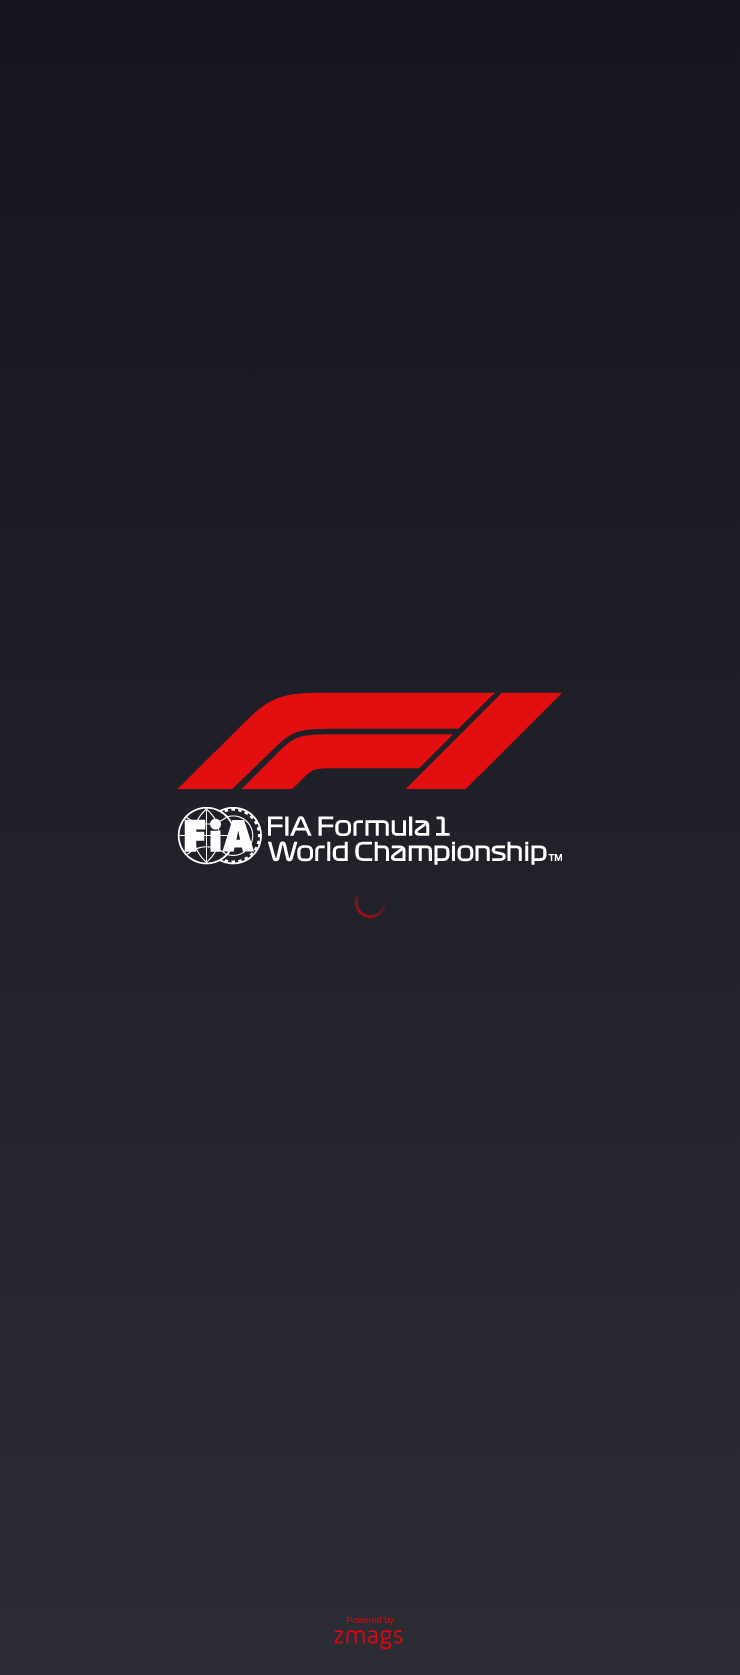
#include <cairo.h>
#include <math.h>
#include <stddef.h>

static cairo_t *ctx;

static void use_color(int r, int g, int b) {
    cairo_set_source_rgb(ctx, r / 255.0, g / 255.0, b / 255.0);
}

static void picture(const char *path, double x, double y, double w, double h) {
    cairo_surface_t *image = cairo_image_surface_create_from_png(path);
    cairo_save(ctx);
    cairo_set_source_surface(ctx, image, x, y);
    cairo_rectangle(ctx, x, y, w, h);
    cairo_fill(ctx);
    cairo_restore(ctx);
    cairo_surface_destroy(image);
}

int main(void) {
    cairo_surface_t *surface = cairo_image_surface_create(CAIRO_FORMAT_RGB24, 740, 1675);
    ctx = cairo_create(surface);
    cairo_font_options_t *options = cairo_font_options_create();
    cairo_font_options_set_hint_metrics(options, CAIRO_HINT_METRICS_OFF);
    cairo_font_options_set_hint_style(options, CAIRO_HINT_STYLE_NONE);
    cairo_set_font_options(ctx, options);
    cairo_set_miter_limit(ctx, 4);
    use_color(255, 255, 255);
    cairo_paint(ctx);
    picture("img1.png", 0, 0, 740, 1675);
    cairo_surface_write_to_png(surface, "result.png");
    cairo_font_options_destroy(options);
    cairo_destroy(ctx);
    cairo_surface_destroy(surface);
    return 0;
}
